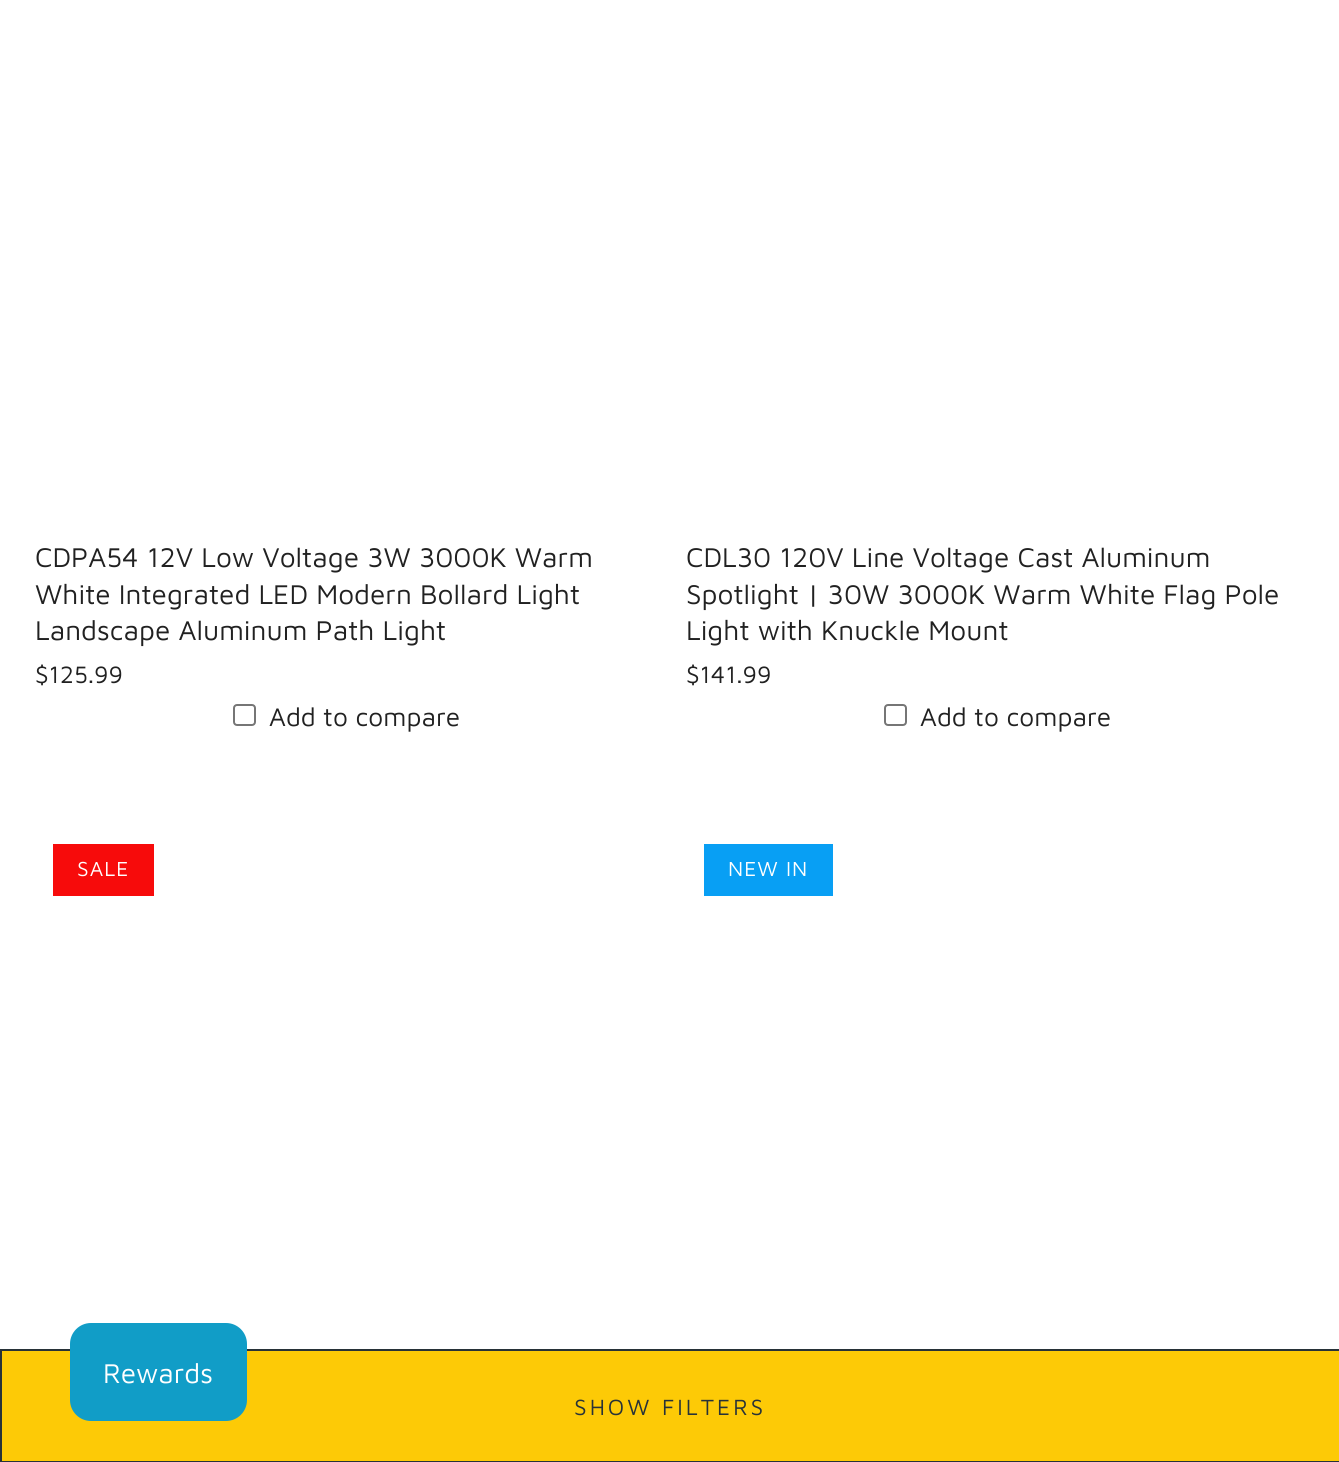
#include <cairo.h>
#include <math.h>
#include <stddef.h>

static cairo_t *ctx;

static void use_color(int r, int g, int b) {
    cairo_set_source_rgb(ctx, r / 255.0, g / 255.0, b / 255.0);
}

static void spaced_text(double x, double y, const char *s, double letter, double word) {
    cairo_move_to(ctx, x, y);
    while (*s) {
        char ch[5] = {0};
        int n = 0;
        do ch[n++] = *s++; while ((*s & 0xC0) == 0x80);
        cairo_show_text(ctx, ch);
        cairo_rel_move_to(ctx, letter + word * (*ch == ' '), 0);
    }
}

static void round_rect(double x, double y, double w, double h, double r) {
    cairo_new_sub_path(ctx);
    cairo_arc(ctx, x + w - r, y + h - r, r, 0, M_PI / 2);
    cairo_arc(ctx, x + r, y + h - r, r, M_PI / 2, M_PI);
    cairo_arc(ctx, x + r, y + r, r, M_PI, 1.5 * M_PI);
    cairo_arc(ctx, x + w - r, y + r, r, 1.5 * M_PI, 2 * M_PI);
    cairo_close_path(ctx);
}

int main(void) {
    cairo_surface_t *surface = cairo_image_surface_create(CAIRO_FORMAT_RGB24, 1339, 1462);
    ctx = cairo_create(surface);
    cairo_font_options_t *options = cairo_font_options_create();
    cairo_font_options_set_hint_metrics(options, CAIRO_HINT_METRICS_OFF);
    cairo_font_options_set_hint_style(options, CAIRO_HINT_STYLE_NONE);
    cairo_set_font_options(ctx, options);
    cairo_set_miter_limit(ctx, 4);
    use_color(255, 255, 255);
    cairo_paint(ctx);
    cairo_select_font_face(ctx, "Maven Pro", CAIRO_FONT_SLANT_NORMAL, CAIRO_FONT_WEIGHT_NORMAL);
    cairo_set_font_size(ctx, 28);
    use_color(33, 33, 33);
    cairo_move_to(ctx, 35, 567);
    cairo_show_text(ctx, "CDPA54 12V Low Voltage 3W 3000K Warm");
    cairo_move_to(ctx, 35, 604);
    cairo_show_text(ctx, "White Integrated LED Modern Bollard Light");
    cairo_move_to(ctx, 35, 640);
    cairo_show_text(ctx, "Landscape Aluminum Path Light");
    cairo_set_font_size(ctx, 24.5);
    cairo_move_to(ctx, 35, 683);
    cairo_show_text(ctx, "$125.99");
    round_rect(234, 705, 21, 20, 3);
    use_color(118, 118, 118);
    cairo_stroke(ctx);
    cairo_set_font_size(ctx, 26.25);
    use_color(33, 33, 33);
    cairo_move_to(ctx, 269, 726);
    cairo_show_text(ctx, "Add to compare");
    cairo_set_font_size(ctx, 28);
    cairo_move_to(ctx, 686, 567);
    cairo_show_text(ctx, "CDL30 120V Line Voltage Cast Aluminum");
    cairo_move_to(ctx, 686, 604);
    cairo_show_text(ctx, "Spotlight | 30W 3000K Warm White Flag Pole");
    cairo_move_to(ctx, 686, 640);
    cairo_show_text(ctx, "Light with Knuckle Mount");
    cairo_set_font_size(ctx, 24.5);
    cairo_move_to(ctx, 686, 683);
    cairo_show_text(ctx, "$141.99");
    round_rect(885, 705, 21, 20, 3);
    use_color(118, 118, 118);
    cairo_stroke(ctx);
    cairo_set_font_size(ctx, 26.25);
    use_color(33, 33, 33);
    cairo_move_to(ctx, 920, 726);
    cairo_show_text(ctx, "Add to compare");
    use_color(247, 11, 11);
    cairo_rectangle(ctx, 53, 844, 101, 52);
    cairo_fill(ctx);
    cairo_set_font_size(ctx, 21);
    use_color(255, 255, 255);
    spaced_text(77, 876, "SALE", 1, 0);
    use_color(8, 159, 244);
    cairo_rectangle(ctx, 704, 844, 129, 52);
    cairo_fill(ctx);
    use_color(255, 255, 255);
    spaced_text(728, 876, "NEW IN", 1, 0);
    use_color(253, 202, 6);
    cairo_rectangle(ctx, 1, 1350, 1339, 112);
    cairo_fill_preserve(ctx);
    use_color(39, 50, 56);
    cairo_stroke(ctx);
    cairo_set_font_size(ctx, 22.75);
    spaced_text(574, 1415, "SHOW FILTERS", 3, 0);
    use_color(17, 157, 199);
    round_rect(70, 1323, 177, 98, 21);
    cairo_fill(ctx);
    cairo_set_font_size(ctx, 28);
    use_color(255, 255, 255);
    cairo_move_to(ctx, 103, 1383);
    cairo_show_text(ctx, "Rewards");
    cairo_surface_write_to_png(surface, "result.png");
    cairo_font_options_destroy(options);
    cairo_destroy(ctx);
    cairo_surface_destroy(surface);
    return 0;
}
